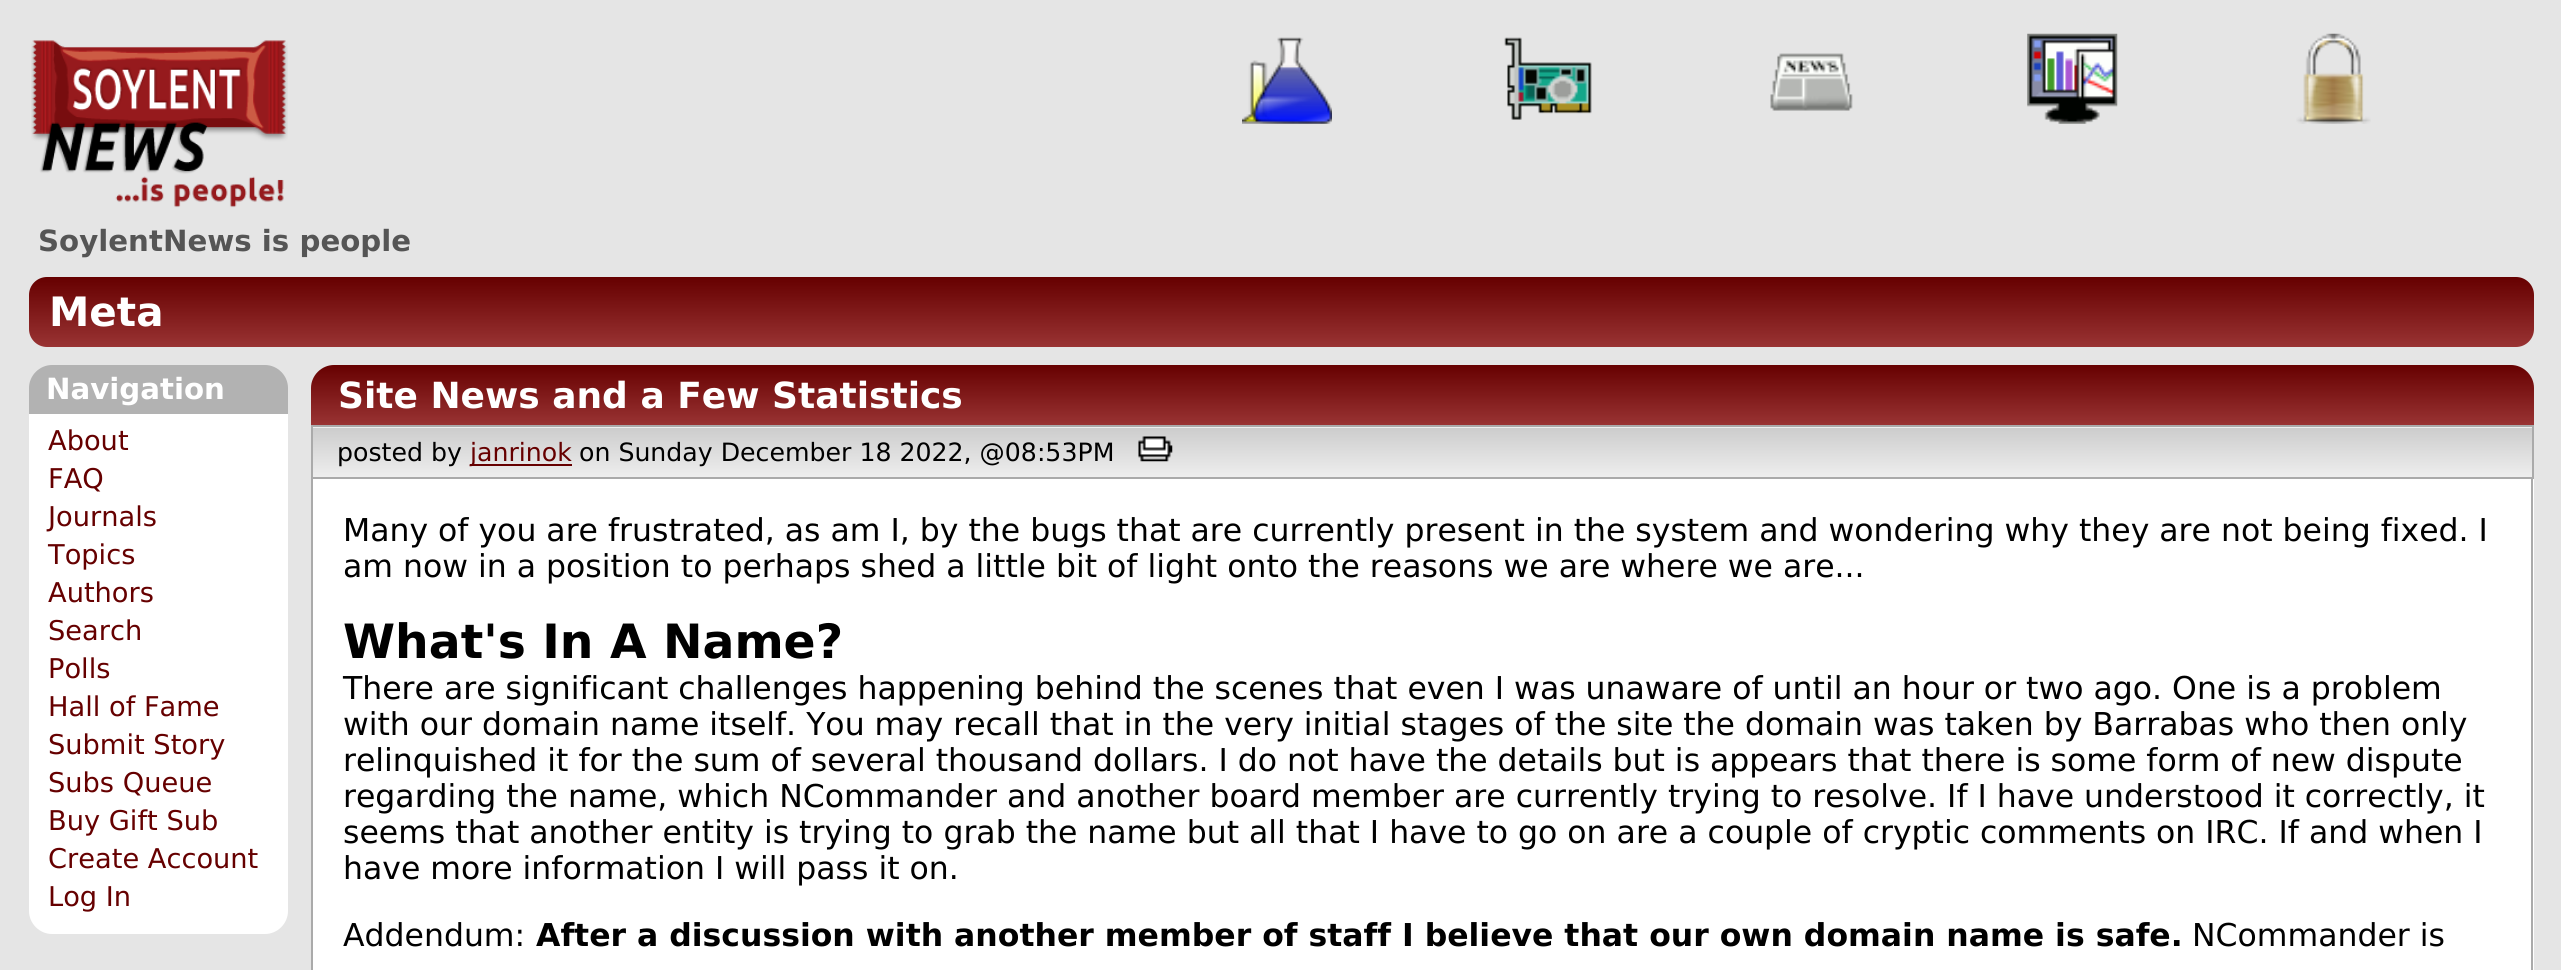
#include <cairo.h>
#include <math.h>
#include <stddef.h>

static cairo_t *ctx;

static void use_color(int r, int g, int b) {
    cairo_set_source_rgb(ctx, r / 255.0, g / 255.0, b / 255.0);
}

static void round_rect(double x, double y, double w, double h, double r) {
    cairo_new_sub_path(ctx);
    cairo_arc(ctx, x + w - r, y + h - r, r, 0, M_PI / 2);
    cairo_arc(ctx, x + r, y + h - r, r, M_PI / 2, M_PI);
    cairo_arc(ctx, x + r, y + r, r, M_PI, 1.5 * M_PI);
    cairo_arc(ctx, x + w - r, y + r, r, 1.5 * M_PI, 2 * M_PI);
    cairo_close_path(ctx);
}

static void picture(const char *path, double x, double y, double w, double h) {
    cairo_surface_t *image = cairo_image_surface_create_from_png(path);
    cairo_save(ctx);
    cairo_set_source_surface(ctx, image, x, y);
    cairo_rectangle(ctx, x, y, w, h);
    cairo_fill(ctx);
    cairo_restore(ctx);
    cairo_surface_destroy(image);
}

int main(void) {
    cairo_surface_t *surface = cairo_image_surface_create(CAIRO_FORMAT_RGB24, 2561, 970);
    ctx = cairo_create(surface);
    cairo_font_options_t *options = cairo_font_options_create();
    cairo_font_options_set_hint_metrics(options, CAIRO_HINT_METRICS_OFF);
    cairo_font_options_set_hint_style(options, CAIRO_HINT_STYLE_NONE);
    cairo_set_font_options(ctx, options);
    cairo_set_miter_limit(ctx, 4);
    cairo_pattern_t *gradient;
    use_color(229, 229, 229);
    cairo_paint(ctx);
    picture("img1.png", 31, 40, 257, 168);
    picture("img2.png", 1242, 37, 90, 87);
    picture("img3.png", 1504, 37, 88, 83);
    picture("img4.png", 1770, 53, 83, 58);
    picture("img5.png", 2027, 33, 91, 91);
    picture("img6.png", 2296, 33, 75, 91);
    cairo_select_font_face(ctx, "DejaVu Sans", CAIRO_FONT_SLANT_NORMAL, CAIRO_FONT_WEIGHT_BOLD);
    cairo_set_font_size(ctx, 29.25);
    use_color(85, 85, 85);
    cairo_move_to(ctx, 38, 251);
    cairo_show_text(ctx, "SoylentNews is people");
    gradient = cairo_pattern_create_linear(1281, 277, 1281, 347);
    cairo_pattern_add_color_stop_rgba(gradient, 0, 0.4, 0, 0, 1);
    cairo_pattern_add_color_stop_rgba(gradient, 1, 0.6, 0.2, 0.2, 1);
    cairo_set_source(ctx, gradient);
    cairo_pattern_destroy(gradient);
    round_rect(29, 277, 2505, 70, 18);
    cairo_fill(ctx);
    cairo_set_font_size(ctx, 40.5);
    use_color(255, 255, 255);
    cairo_move_to(ctx, 49, 326);
    cairo_show_text(ctx, "Meta");
    use_color(178, 178, 178);
    cairo_new_path(ctx);
    cairo_move_to(ctx, 52, 365);
    cairo_line_to(ctx, 265, 365);
    cairo_curve_to(ctx, 277.5, 365, 288, 375.5, 288, 388);
    cairo_line_to(ctx, 288, 414);
    cairo_line_to(ctx, 29, 414);
    cairo_line_to(ctx, 29, 388);
    cairo_curve_to(ctx, 29, 375.5, 39.5, 365, 52, 365);
    cairo_close_path(ctx);
    cairo_fill(ctx);
    cairo_set_font_size(ctx, 29.25);
    use_color(255, 255, 255);
    cairo_move_to(ctx, 46, 399);
    cairo_show_text(ctx, "Navigation");
    cairo_new_path(ctx);
    cairo_move_to(ctx, 29, 414);
    cairo_line_to(ctx, 288, 414);
    cairo_line_to(ctx, 288, 911);
    cairo_curve_to(ctx, 288, 923.5, 277.5, 934, 265, 934);
    cairo_line_to(ctx, 52, 934);
    cairo_curve_to(ctx, 39.5, 934, 29, 923.5, 29, 911);
    cairo_close_path(ctx);
    cairo_fill(ctx);
    cairo_select_font_face(ctx, "DejaVu Sans", CAIRO_FONT_SLANT_NORMAL, CAIRO_FONT_WEIGHT_NORMAL);
    cairo_set_font_size(ctx, 27.25);
    use_color(102, 0, 0);
    cairo_move_to(ctx, 48, 450);
    cairo_show_text(ctx, "About");
    cairo_move_to(ctx, 48, 488);
    cairo_show_text(ctx, "FAQ");
    cairo_move_to(ctx, 48, 526);
    cairo_show_text(ctx, "Journals");
    cairo_move_to(ctx, 48, 564);
    cairo_show_text(ctx, "Topics");
    cairo_move_to(ctx, 48, 602);
    cairo_show_text(ctx, "Authors");
    cairo_move_to(ctx, 48, 640);
    cairo_show_text(ctx, "Search");
    cairo_move_to(ctx, 48, 678);
    cairo_show_text(ctx, "Polls");
    cairo_move_to(ctx, 48, 716);
    cairo_show_text(ctx, "Hall of Fame");
    cairo_move_to(ctx, 48, 754);
    cairo_show_text(ctx, "Submit Story");
    cairo_move_to(ctx, 48, 792);
    cairo_show_text(ctx, "Subs Queue");
    cairo_move_to(ctx, 48, 830);
    cairo_show_text(ctx, "Buy Gift Sub");
    cairo_move_to(ctx, 48, 868);
    cairo_show_text(ctx, "Create Account");
    cairo_move_to(ctx, 48, 906);
    cairo_show_text(ctx, "Log In");
    gradient = cairo_pattern_create_linear(1422, 364, 1422, 425);
    cairo_pattern_add_color_stop_rgba(gradient, 0, 0.4, 0, 0, 1);
    cairo_pattern_add_color_stop_rgba(gradient, 1, 0.6, 0.2, 0.2, 1);
    cairo_set_source(ctx, gradient);
    cairo_pattern_destroy(gradient);
    cairo_new_path(ctx);
    cairo_move_to(ctx, 334, 365);
    cairo_line_to(ctx, 2511, 365);
    cairo_curve_to(ctx, 2523.5, 365, 2534, 375.5, 2534, 388);
    cairo_line_to(ctx, 2534, 425);
    cairo_line_to(ctx, 311, 425);
    cairo_line_to(ctx, 311, 388);
    cairo_curve_to(ctx, 311, 375.5, 321.5, 365, 334, 365);
    cairo_close_path(ctx);
    cairo_fill(ctx);
    cairo_select_font_face(ctx, "DejaVu Sans", CAIRO_FONT_SLANT_NORMAL, CAIRO_FONT_WEIGHT_BOLD);
    cairo_set_font_size(ctx, 36);
    use_color(255, 255, 255);
    cairo_move_to(ctx, 338, 408);
    cairo_show_text(ctx, "Site News and a Few Statistics");
    gradient = cairo_pattern_create_linear(1422, 378, 1422, 428);
    cairo_pattern_add_color_stop_rgba(gradient, 0, 0.8, 0.8, 0.8, 1);
    cairo_pattern_add_color_stop_rgba(gradient, 1, 0.933, 0.933, 0.933, 1);
    cairo_set_source(ctx, gradient);
    cairo_pattern_destroy(gradient);
    cairo_rectangle(ctx, 311, 427, 2223, 1);
    cairo_fill(ctx);
    gradient = cairo_pattern_create_linear(1422, 427, 1422, 477);
    cairo_pattern_add_color_stop_rgba(gradient, 0, 0.8, 0.8, 0.8, 1);
    cairo_pattern_add_color_stop_rgba(gradient, 1, 0.933, 0.933, 0.933, 1);
    cairo_set_source(ctx, gradient);
    cairo_pattern_destroy(gradient);
    cairo_rectangle(ctx, 313, 428, 2219, 49);
    cairo_fill(ctx);
    cairo_rectangle(ctx, 312, 426, 2221, 52);
    use_color(170, 170, 170);
    cairo_stroke(ctx);
    cairo_select_font_face(ctx, "DejaVu Sans", CAIRO_FONT_SLANT_NORMAL, CAIRO_FONT_WEIGHT_NORMAL);
    cairo_set_font_size(ctx, 25.2);
    use_color(0, 0, 0);
    cairo_move_to(ctx, 337, 461);
    cairo_show_text(ctx, "posted by");
    use_color(102, 0, 0);
    cairo_rectangle(ctx, 470, 464, 102, 2);
    cairo_fill(ctx);
    cairo_move_to(ctx, 470, 461);
    cairo_show_text(ctx, "janrinok");
    use_color(0, 0, 0);
    cairo_move_to(ctx, 579, 461);
    cairo_show_text(ctx, "on Sunday December 18 2022, @08:53PM");
    picture("img7.png", 1138, 436, 35, 26);
    use_color(255, 255, 255);
    cairo_rectangle(ctx, 313, 479, 2221, 491);
    cairo_fill(ctx);
    use_color(170, 170, 170);
    cairo_rectangle(ctx, 2531, 479, 2, 491);
    cairo_fill(ctx);
    cairo_rectangle(ctx, 311, 479, 2, 491);
    cairo_fill(ctx);
    cairo_set_font_size(ctx, 31.5);
    use_color(0, 0, 0);
    cairo_move_to(ctx, 343, 541);
    cairo_show_text(ctx, "Many of you are frustrated, as am I, by the bugs that are currently present in the system and wondering why they are not being fixed. I");
    cairo_move_to(ctx, 343, 577);
    cairo_show_text(ctx, "am now in a position to perhaps shed a little bit of light onto the reasons we are where we are...");
    cairo_select_font_face(ctx, "DejaVu Sans", CAIRO_FONT_SLANT_NORMAL, CAIRO_FONT_WEIGHT_BOLD);
    cairo_set_font_size(ctx, 47.25);
    cairo_move_to(ctx, 343, 658);
    cairo_show_text(ctx, "What's In A Name?");
    cairo_select_font_face(ctx, "DejaVu Sans", CAIRO_FONT_SLANT_NORMAL, CAIRO_FONT_WEIGHT_NORMAL);
    cairo_set_font_size(ctx, 31.5);
    cairo_move_to(ctx, 343, 699);
    cairo_show_text(ctx, "There are significant challenges happening behind the scenes that even I was unaware of until an hour or two ago. One is a problem");
    cairo_move_to(ctx, 343, 735);
    cairo_show_text(ctx, "with our domain name itself. You may recall that in the very initial stages of the site the domain was taken by Barrabas who then only");
    cairo_move_to(ctx, 343, 771);
    cairo_show_text(ctx, "relinquished it for the sum of several thousand dollars. I do not have the details but is appears that there is some form of new dispute");
    cairo_move_to(ctx, 343, 807);
    cairo_show_text(ctx, "regarding the name, which NCommander and another board member are currently trying to resolve. If I have understood it correctly, it");
    cairo_move_to(ctx, 343, 843);
    cairo_show_text(ctx, "seems that another entity is trying to grab the name but all that I have to go on are a couple of cryptic comments on IRC. If and when I");
    cairo_move_to(ctx, 343, 879);
    cairo_show_text(ctx, "have more information I will pass it on.");
    cairo_move_to(ctx, 343, 946);
    cairo_show_text(ctx, "Addendum:");
    cairo_select_font_face(ctx, "DejaVu Sans", CAIRO_FONT_SLANT_NORMAL, CAIRO_FONT_WEIGHT_BOLD);
    cairo_move_to(ctx, 536, 946);
    cairo_show_text(ctx, "After a discussion with another member of staff I believe that our own domain name is safe.");
    cairo_select_font_face(ctx, "DejaVu Sans", CAIRO_FONT_SLANT_NORMAL, CAIRO_FONT_WEIGHT_NORMAL);
    cairo_move_to(ctx, 2192, 946);
    cairo_show_text(ctx, "NCommander is");
    cairo_surface_write_to_png(surface, "result.png");
    cairo_font_options_destroy(options);
    cairo_destroy(ctx);
    cairo_surface_destroy(surface);
    return 0;
}
